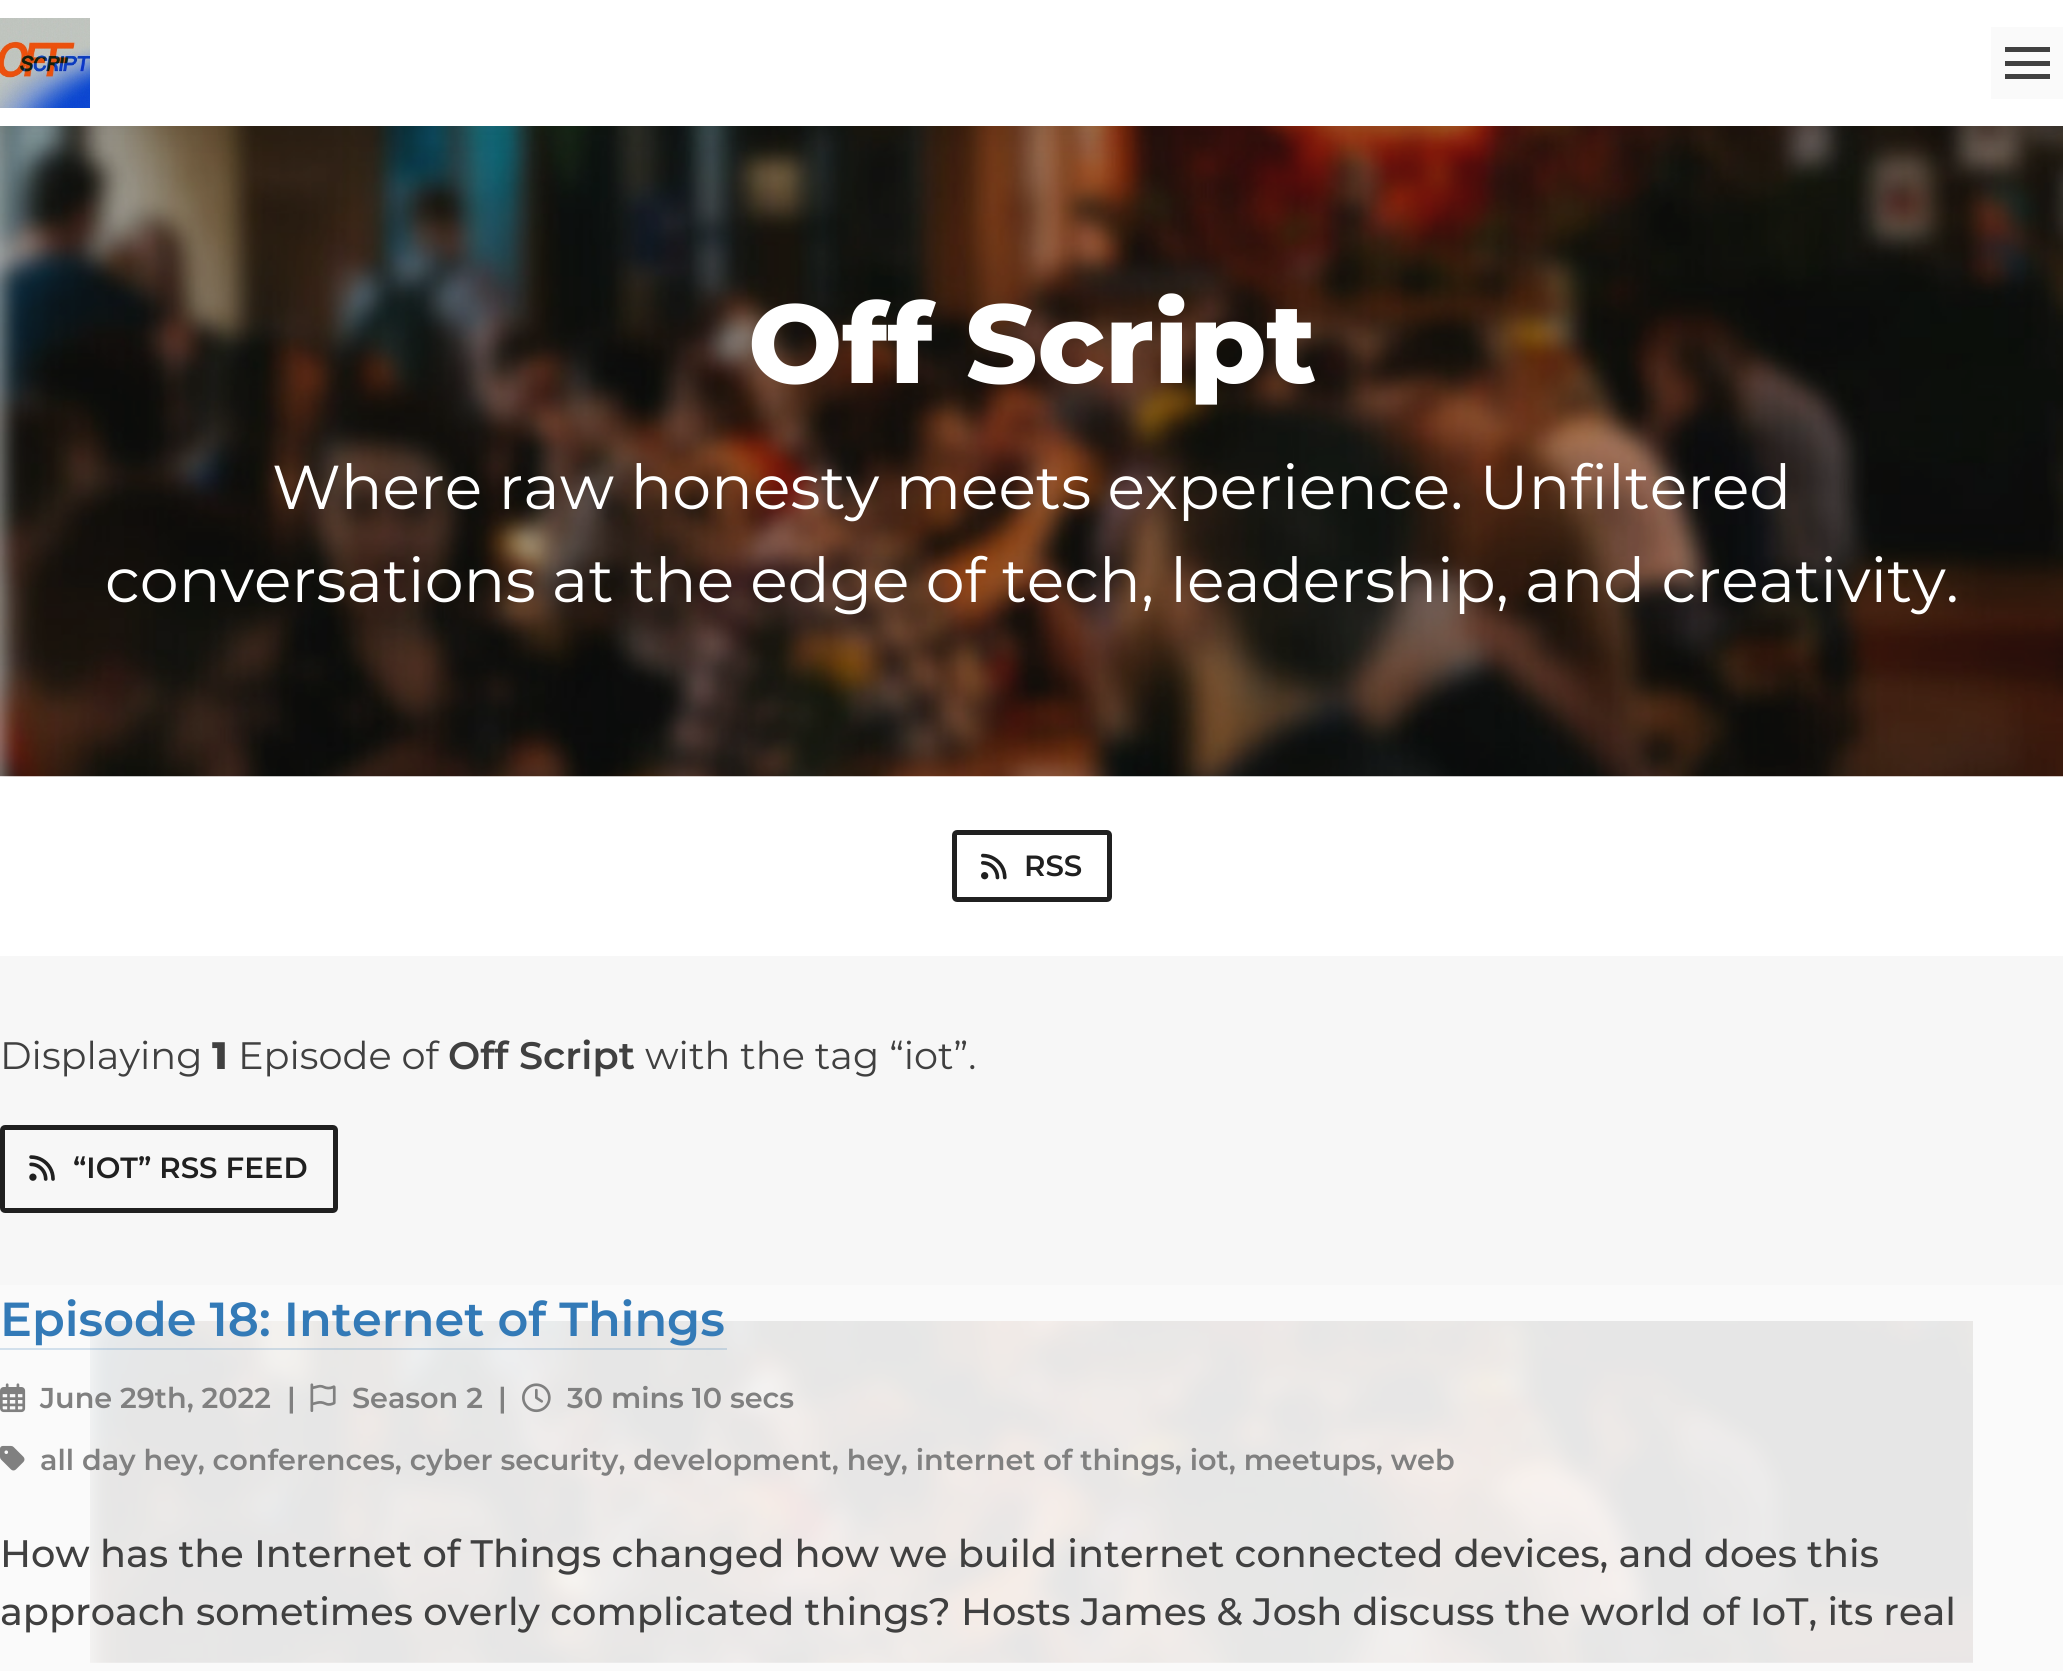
#include <cairo.h>
#include <math.h>
#include <stddef.h>

static cairo_t *ctx;

static void use_color(int r, int g, int b) {
    cairo_set_source_rgb(ctx, r / 255.0, g / 255.0, b / 255.0);
}

static void round_rect(double x, double y, double w, double h, double r) {
    cairo_new_sub_path(ctx);
    cairo_arc(ctx, x + w - r, y + h - r, r, 0, M_PI / 2);
    cairo_arc(ctx, x + r, y + h - r, r, M_PI / 2, M_PI);
    cairo_arc(ctx, x + r, y + r, r, M_PI, 1.5 * M_PI);
    cairo_arc(ctx, x + w - r, y + r, r, 1.5 * M_PI, 2 * M_PI);
    cairo_close_path(ctx);
}

static void shadow(double x, double y, double w, double h, double r, double blur, double alpha) {
    cairo_push_group_with_content(ctx, CAIRO_CONTENT_ALPHA);
    cairo_set_operator(ctx, CAIRO_OPERATOR_SOURCE);
    for (int i = 15; i >= -15 && fmin(w, h) + blur * i / 3 > 0; i -= 2) {
        double e = blur * i / 6;
        cairo_set_source_rgba(ctx, 0, 0, 0, alpha * erfc((i - 1) / 8.5) / 2);
        round_rect(x - e, y - e, w + 2 * e, h + 2 * e, fmax(0, fmin(r + e + blur * .6, fmin(w, h) / 2 + e)));
        cairo_fill(ctx);
    }
    cairo_pattern_t *soft = cairo_pop_group(ctx);
    cairo_mask(ctx, soft);
    cairo_pattern_destroy(soft);
}

static void picture(const char *path, double x, double y, double w, double h) {
    cairo_surface_t *image = cairo_image_surface_create_from_png(path);
    cairo_save(ctx);
    cairo_set_source_surface(ctx, image, x, y);
    cairo_rectangle(ctx, x, y, w, h);
    cairo_fill(ctx);
    cairo_restore(ctx);
    cairo_surface_destroy(image);
}

int main(void) {
    cairo_surface_t *surface = cairo_image_surface_create(CAIRO_FORMAT_RGB24, 2063, 1671);
    ctx = cairo_create(surface);
    cairo_font_options_t *options = cairo_font_options_create();
    cairo_font_options_set_hint_metrics(options, CAIRO_HINT_METRICS_OFF);
    cairo_font_options_set_hint_style(options, CAIRO_HINT_STYLE_NONE);
    cairo_set_font_options(ctx, options);
    cairo_set_miter_limit(ctx, 4);
    use_color(247, 247, 247);
    cairo_paint(ctx);
    use_color(255, 255, 255);
    cairo_rectangle(ctx, 0, 776, 2063, 180);
    cairo_fill(ctx);
    picture("img2.png", 0, 126, 2063, 651);
    use_color(0, 0, 0);
    shadow(0, 0, 2063, 126, 0, 18, 0.1);
    use_color(255, 255, 255);
    cairo_rectangle(ctx, 0, 0, 2063, 126);
    cairo_fill(ctx);
    picture("img1.png", 0, 18, 90, 90);
    use_color(250, 250, 250);
    cairo_rectangle(ctx, 1991, 27, 72, 72);
    cairo_fill(ctx);
    use_color(64, 64, 64);
    cairo_rectangle(ctx, 2005, 47, 45, 5);
    cairo_fill(ctx);
    cairo_rectangle(ctx, 2005, 61, 45, 5);
    cairo_fill(ctx);
    cairo_rectangle(ctx, 2005, 74, 45, 5);
    cairo_fill(ctx);
    cairo_select_font_face(ctx, "Montserrat ExtraBold", CAIRO_FONT_SLANT_NORMAL, CAIRO_FONT_WEIGHT_NORMAL);
    cairo_set_font_size(ctx, 111.5);
    use_color(255, 255, 255);
    cairo_move_to(ctx, 748, 383);
    cairo_show_text(ctx, "Off Script");
    cairo_select_font_face(ctx, "Montserrat", CAIRO_FONT_SLANT_NORMAL, CAIRO_FONT_WEIGHT_NORMAL);
    cairo_set_font_size(ctx, 61.9);
    cairo_move_to(ctx, 272, 509);
    cairo_show_text(ctx, "Where raw honesty meets experience. Unfiltered");
    cairo_move_to(ctx, 105, 602);
    cairo_show_text(ctx, "conversations at the edge of tech, leadership, and creativity.");
    round_rect(954.5, 832.5, 155, 67, 2.5);
    use_color(32, 32, 32);
    cairo_set_line_width(ctx, 5);
    cairo_stroke(ctx);
    picture("img3.png", 981, 853, 26, 27);
    cairo_select_font_face(ctx, "Montserrat SemiBold", CAIRO_FONT_SLANT_NORMAL, CAIRO_FONT_WEIGHT_NORMAL);
    cairo_set_font_size(ctx, 29.25);
    cairo_move_to(ctx, 1024, 876);
    cairo_show_text(ctx, "RSS");
    cairo_select_font_face(ctx, "Montserrat", CAIRO_FONT_SLANT_NORMAL, CAIRO_FONT_WEIGHT_NORMAL);
    cairo_set_font_size(ctx, 38.25);
    use_color(64, 64, 64);
    cairo_move_to(ctx, 0, 1069);
    cairo_show_text(ctx, "Displaying");
    cairo_select_font_face(ctx, "Montserrat ExtraBold", CAIRO_FONT_SLANT_NORMAL, CAIRO_FONT_WEIGHT_NORMAL);
    cairo_move_to(ctx, 212, 1069);
    cairo_show_text(ctx, "1");
    cairo_select_font_face(ctx, "Montserrat", CAIRO_FONT_SLANT_NORMAL, CAIRO_FONT_WEIGHT_NORMAL);
    cairo_move_to(ctx, 238, 1069);
    cairo_show_text(ctx, "Episode of");
    cairo_select_font_face(ctx, "Montserrat SemiBold", CAIRO_FONT_SLANT_NORMAL, CAIRO_FONT_WEIGHT_NORMAL);
    cairo_move_to(ctx, 448, 1069);
    cairo_show_text(ctx, "Off Script");
    cairo_select_font_face(ctx, "Montserrat", CAIRO_FONT_SLANT_NORMAL, CAIRO_FONT_WEIGHT_NORMAL);
    cairo_move_to(ctx, 645, 1069);
    cairo_show_text(ctx, "with the tag “iot”.");
    round_rect(2.5, 1127.5, 333, 83, 2.5);
    use_color(32, 32, 32);
    cairo_stroke(ctx);
    picture("img4.png", 29, 1155, 26, 26);
    cairo_select_font_face(ctx, "Montserrat SemiBold", CAIRO_FONT_SLANT_NORMAL, CAIRO_FONT_WEIGHT_NORMAL);
    cairo_set_font_size(ctx, 29.25);
    cairo_move_to(ctx, 73, 1178);
    cairo_show_text(ctx, "“IOT” RSS FEED");
    use_color(250, 250, 250);
    cairo_rectangle(ctx, 0, 1285, 2063, 386);
    cairo_fill(ctx);
    picture("img9.png", 90, 1321, 1883, 342);
    cairo_set_font_size(ctx, 47.75);
    use_color(51, 122, 183);
    cairo_move_to(ctx, 0, 1336);
    cairo_show_text(ctx, "Episode 18: Internet of Things");
    cairo_set_source_rgba(ctx, 0.2, 0.478, 0.718, 0.2);
    cairo_new_path(ctx);
    cairo_move_to(ctx, 0, 1348);
    cairo_line_to(ctx, 0, 1350);
    cairo_line_to(ctx, 727, 1350);
    cairo_line_to(ctx, 727, 1292);
    cairo_line_to(ctx, 727, 1348);
    cairo_close_path(ctx);
    cairo_fill(ctx);
    picture("img5.png", 0, 1383, 26, 30);
    cairo_set_font_size(ctx, 28.7);
    use_color(128, 128, 128);
    cairo_move_to(ctx, 40, 1408);
    cairo_show_text(ctx, "June 29th, 2022");
    cairo_move_to(ctx, 287, 1408);
    cairo_show_text(ctx, "|");
    picture("img6.png", 310, 1383, 26, 29);
    cairo_move_to(ctx, 352, 1408);
    cairo_show_text(ctx, "Season 2");
    cairo_move_to(ctx, 498, 1408);
    cairo_show_text(ctx, "|");
    picture("img7.png", 522, 1383, 29, 30);
    cairo_move_to(ctx, 567, 1408);
    cairo_show_text(ctx, "30 mins 10 secs");
    picture("img8.png", 0, 1445, 25, 26);
    cairo_move_to(ctx, 40, 1470);
    cairo_show_text(ctx, "all day hey, conferences, cyber security, development, hey, internet of things, iot, meetups, web");
    cairo_select_font_face(ctx, "Montserrat Medium", CAIRO_FONT_SLANT_NORMAL, CAIRO_FONT_WEIGHT_NORMAL);
    cairo_set_font_size(ctx, 38.25);
    use_color(64, 64, 64);
    cairo_move_to(ctx, 0, 1567);
    cairo_show_text(ctx, "How has the Internet of Things changed how we build internet connected devices, and does this");
    cairo_move_to(ctx, 0, 1625);
    cairo_show_text(ctx, "approach sometimes overly complicated things? Hosts James & Josh discuss the world of IoT, its real");
    cairo_surface_write_to_png(surface, "result.png");
    cairo_font_options_destroy(options);
    cairo_destroy(ctx);
    cairo_surface_destroy(surface);
    return 0;
}
